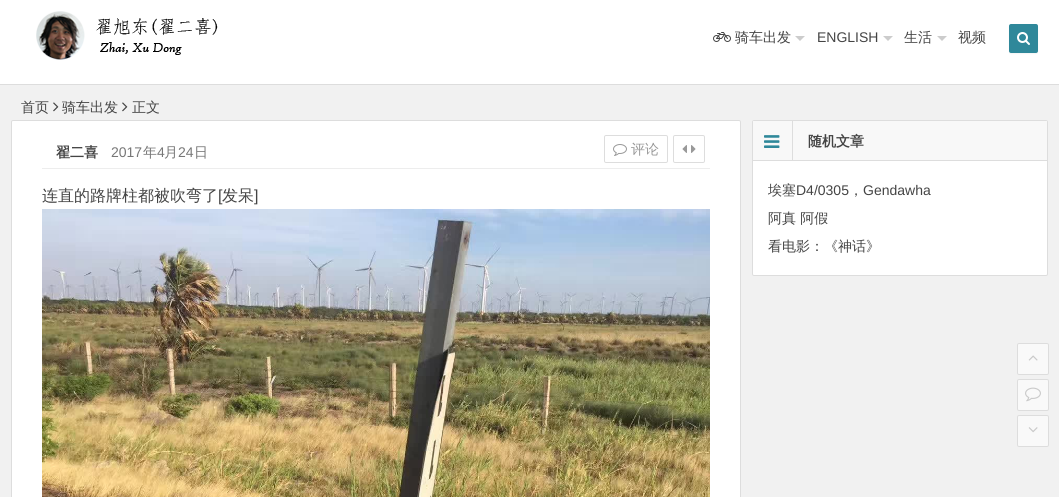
#include <cairo.h>
#include <math.h>
#include <stddef.h>

static cairo_t *ctx;

static void use_color(int r, int g, int b) {
    cairo_set_source_rgb(ctx, r / 255.0, g / 255.0, b / 255.0);
}

static void round_rect(double x, double y, double w, double h, double r) {
    cairo_new_sub_path(ctx);
    cairo_arc(ctx, x + w - r, y + h - r, r, 0, M_PI / 2);
    cairo_arc(ctx, x + r, y + h - r, r, M_PI / 2, M_PI);
    cairo_arc(ctx, x + r, y + r, r, M_PI, 1.5 * M_PI);
    cairo_arc(ctx, x + w - r, y + r, r, 1.5 * M_PI, 2 * M_PI);
    cairo_close_path(ctx);
}

static void shadow(double x, double y, double w, double h, double r, double blur, double alpha) {
    cairo_push_group_with_content(ctx, CAIRO_CONTENT_ALPHA);
    cairo_set_operator(ctx, CAIRO_OPERATOR_SOURCE);
    for (int i = 15; i >= -15 && fmin(w, h) + blur * i / 3 > 0; i -= 2) {
        double e = blur * i / 6;
        cairo_set_source_rgba(ctx, 0, 0, 0, alpha * erfc((i - 1) / 8.5) / 2);
        round_rect(x - e, y - e, w + 2 * e, h + 2 * e, fmax(0, fmin(r + e + blur * .6, fmin(w, h) / 2 + e)));
        cairo_fill(ctx);
    }
    cairo_pattern_t *soft = cairo_pop_group(ctx);
    cairo_mask(ctx, soft);
    cairo_pattern_destroy(soft);
}

static void picture(const char *path, double x, double y, double w, double h) {
    cairo_surface_t *image = cairo_image_surface_create_from_png(path);
    cairo_save(ctx);
    cairo_set_source_surface(ctx, image, x, y);
    cairo_rectangle(ctx, x, y, w, h);
    cairo_fill(ctx);
    cairo_restore(ctx);
    cairo_surface_destroy(image);
}

int main(void) {
    cairo_surface_t *surface = cairo_image_surface_create(CAIRO_FORMAT_RGB24, 1059, 497);
    ctx = cairo_create(surface);
    cairo_font_options_t *options = cairo_font_options_create();
    cairo_font_options_set_hint_metrics(options, CAIRO_HINT_METRICS_OFF);
    cairo_font_options_set_hint_style(options, CAIRO_HINT_STYLE_NONE);
    cairo_set_font_options(ctx, options);
    cairo_set_miter_limit(ctx, 4);
    use_color(241, 241, 241);
    cairo_paint(ctx);
    use_color(255, 255, 255);
    cairo_rectangle(ctx, 0, 0, 1059, 84);
    cairo_fill(ctx);
    use_color(221, 221, 221);
    cairo_rectangle(ctx, 0, 84, 1059, 1);
    cairo_fill(ctx);
    picture("img1.png", 36, 11, 182, 49);
    picture("img2.png", 713, 32, 18, 10);
    cairo_select_font_face(ctx, "WenQuanYi Zen Hei Medium", CAIRO_FONT_SLANT_NORMAL, CAIRO_FONT_WEIGHT_NORMAL);
    cairo_set_font_size(ctx, 14);
    use_color(68, 68, 68);
    cairo_move_to(ctx, 735, 42);
    cairo_show_text(ctx, "骑车出发");
    use_color(204, 204, 204);
    cairo_new_path(ctx);
    cairo_move_to(ctx, 795, 36);
    cairo_line_to(ctx, 805, 36);
    cairo_line_to(ctx, 800, 41);
    cairo_close_path(ctx);
    cairo_fill(ctx);
    cairo_select_font_face(ctx, "Liberation Sans", CAIRO_FONT_SLANT_NORMAL, CAIRO_FONT_WEIGHT_NORMAL);
    use_color(68, 68, 68);
    cairo_move_to(ctx, 817, 42);
    cairo_show_text(ctx, "ENGLISH");
    use_color(204, 204, 204);
    cairo_new_path(ctx);
    cairo_move_to(ctx, 883, 36);
    cairo_line_to(ctx, 893, 36);
    cairo_line_to(ctx, 888, 41);
    cairo_close_path(ctx);
    cairo_fill(ctx);
    cairo_select_font_face(ctx, "WenQuanYi Zen Hei Medium", CAIRO_FONT_SLANT_NORMAL, CAIRO_FONT_WEIGHT_NORMAL);
    use_color(68, 68, 68);
    cairo_move_to(ctx, 904, 42);
    cairo_show_text(ctx, "生活");
    use_color(204, 204, 204);
    cairo_new_path(ctx);
    cairo_move_to(ctx, 937, 36);
    cairo_line_to(ctx, 947, 36);
    cairo_line_to(ctx, 942, 41);
    cairo_close_path(ctx);
    cairo_fill(ctx);
    use_color(68, 68, 68);
    cairo_move_to(ctx, 958, 42);
    cairo_show_text(ctx, "视频");
    use_color(0, 0, 0);
    shadow(1009, 25, 29, 29, 2, 0.5, 0.04);
    use_color(47, 136, 154);
    round_rect(1009, 24, 29, 29, 2);
    cairo_fill(ctx);
    picture("img3.png", 1017, 32, 13, 13);
    use_color(68, 68, 68);
    cairo_move_to(ctx, 21, 112);
    cairo_show_text(ctx, "首页");
    picture("img4.png", 53, 102, 6, 10);
    cairo_move_to(ctx, 62, 112);
    cairo_show_text(ctx, "骑车出发");
    picture("img4.png", 122, 102, 6, 10);
    cairo_move_to(ctx, 132, 112);
    cairo_show_text(ctx, "正文");
    use_color(255, 255, 255);
    round_rect(11.5, 120.5, 729, 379, 1.5);
    cairo_fill_preserve(ctx);
    use_color(221, 221, 221);
    cairo_set_line_width(ctx, 1);
    cairo_stroke(ctx);
    use_color(237, 237, 237);
    cairo_rectangle(ctx, 42, 168, 668, 1);
    cairo_fill(ctx);
    cairo_select_font_face(ctx, "WenQuanYi Zen Hei", CAIRO_FONT_SLANT_NORMAL, CAIRO_FONT_WEIGHT_BOLD);
    use_color(68, 68, 68);
    cairo_move_to(ctx, 56, 157);
    cairo_show_text(ctx, "翟二喜");
    cairo_select_font_face(ctx, "Liberation Sans", CAIRO_FONT_SLANT_NORMAL, CAIRO_FONT_WEIGHT_NORMAL);
    use_color(119, 119, 119);
    cairo_move_to(ctx, 111, 157);
    cairo_show_text(ctx, "2017");
    cairo_select_font_face(ctx, "WenQuanYi Zen Hei Medium", CAIRO_FONT_SLANT_NORMAL, CAIRO_FONT_WEIGHT_NORMAL);
    cairo_move_to(ctx, 143, 157);
    cairo_show_text(ctx, "年");
    cairo_select_font_face(ctx, "Liberation Sans", CAIRO_FONT_SLANT_NORMAL, CAIRO_FONT_WEIGHT_NORMAL);
    cairo_move_to(ctx, 157, 157);
    cairo_show_text(ctx, "4");
    cairo_select_font_face(ctx, "WenQuanYi Zen Hei Medium", CAIRO_FONT_SLANT_NORMAL, CAIRO_FONT_WEIGHT_NORMAL);
    cairo_move_to(ctx, 164, 157);
    cairo_show_text(ctx, "月");
    cairo_select_font_face(ctx, "Liberation Sans", CAIRO_FONT_SLANT_NORMAL, CAIRO_FONT_WEIGHT_NORMAL);
    cairo_move_to(ctx, 178, 157);
    cairo_show_text(ctx, "24");
    cairo_select_font_face(ctx, "WenQuanYi Zen Hei Medium", CAIRO_FONT_SLANT_NORMAL, CAIRO_FONT_WEIGHT_NORMAL);
    cairo_move_to(ctx, 194, 157);
    cairo_show_text(ctx, "日");
    round_rect(604.5, 135.5, 63, 27, 1.5);
    use_color(221, 221, 221);
    cairo_stroke(ctx);
    picture("img5.png", 613, 144, 14, 12);
    use_color(153, 153, 153);
    cairo_move_to(ctx, 631, 154);
    cairo_show_text(ctx, "评论");
    round_rect(673.5, 135.5, 31, 27, 1.5);
    use_color(221, 221, 221);
    cairo_stroke(ctx);
    picture("img6.png", 682, 145, 5, 8);
    picture("img7.png", 691, 145, 5, 8);
    cairo_set_font_size(ctx, 16);
    use_color(68, 68, 68);
    cairo_move_to(ctx, 42, 201);
    cairo_show_text(ctx, "连直的路牌柱都被吹弯了");
    cairo_select_font_face(ctx, "Liberation Sans", CAIRO_FONT_SLANT_NORMAL, CAIRO_FONT_WEIGHT_NORMAL);
    cairo_move_to(ctx, 218, 201);
    cairo_show_text(ctx, "[");
    cairo_select_font_face(ctx, "WenQuanYi Zen Hei Medium", CAIRO_FONT_SLANT_NORMAL, CAIRO_FONT_WEIGHT_NORMAL);
    cairo_move_to(ctx, 222, 201);
    cairo_show_text(ctx, "发呆");
    cairo_select_font_face(ctx, "Liberation Sans", CAIRO_FONT_SLANT_NORMAL, CAIRO_FONT_WEIGHT_NORMAL);
    cairo_move_to(ctx, 254, 201);
    cairo_show_text(ctx, "]");
    picture("img8.png", 42, 209, 668, 288);
    use_color(255, 255, 255);
    round_rect(752.5, 120.5, 295, 155, 1.5);
    cairo_fill_preserve(ctx);
    use_color(221, 221, 221);
    cairo_stroke(ctx);
    use_color(248, 248, 248);
    cairo_rectangle(ctx, 753, 121, 294, 39);
    cairo_fill(ctx);
    use_color(221, 221, 221);
    cairo_rectangle(ctx, 753, 160, 294, 1);
    cairo_fill(ctx);
    cairo_rectangle(ctx, 792, 121, 1, 40);
    cairo_fill(ctx);
    picture("img9.png", 764, 135, 16, 13);
    cairo_select_font_face(ctx, "WenQuanYi Zen Hei", CAIRO_FONT_SLANT_NORMAL, CAIRO_FONT_WEIGHT_BOLD);
    cairo_set_font_size(ctx, 14);
    use_color(68, 68, 68);
    cairo_move_to(ctx, 808, 146);
    cairo_show_text(ctx, "随机文章");
    cairo_save(ctx);
    cairo_rectangle(ctx, 768, 176, 262, 28);
    cairo_clip(ctx);
    cairo_select_font_face(ctx, "WenQuanYi Zen Hei Medium", CAIRO_FONT_SLANT_NORMAL, CAIRO_FONT_WEIGHT_NORMAL);
    cairo_move_to(ctx, 768, 195);
    cairo_show_text(ctx, "埃塞");
    cairo_restore(ctx);
    cairo_select_font_face(ctx, "Liberation Sans", CAIRO_FONT_SLANT_NORMAL, CAIRO_FONT_WEIGHT_NORMAL);
    cairo_move_to(ctx, 796, 195);
    cairo_show_text(ctx, "D4/0305");
    cairo_select_font_face(ctx, "WenQuanYi Zen Hei Medium", CAIRO_FONT_SLANT_NORMAL, CAIRO_FONT_WEIGHT_NORMAL);
    cairo_move_to(ctx, 849, 195);
    cairo_show_text(ctx, "，");
    cairo_select_font_face(ctx, "Liberation Sans", CAIRO_FONT_SLANT_NORMAL, CAIRO_FONT_WEIGHT_NORMAL);
    cairo_move_to(ctx, 863, 195);
    cairo_show_text(ctx, "Gendawha");
    cairo_select_font_face(ctx, "WenQuanYi Zen Hei Medium", CAIRO_FONT_SLANT_NORMAL, CAIRO_FONT_WEIGHT_NORMAL);
    cairo_move_to(ctx, 768, 223);
    cairo_show_text(ctx, "阿真 阿假");
    cairo_move_to(ctx, 768, 251);
    cairo_show_text(ctx, "看电影：《神话》");
    use_color(249, 249, 249);
    round_rect(1017.5, 343.5, 31, 31, 1.5);
    cairo_fill_preserve(ctx);
    use_color(221, 221, 221);
    cairo_stroke(ctx);
    picture("img10.png", 1028, 355, 10, 6);
    use_color(249, 249, 249);
    round_rect(1017.5, 379.5, 31, 31, 1.5);
    cairo_fill_preserve(ctx);
    use_color(221, 221, 221);
    cairo_stroke(ctx);
    picture("img11.png", 1025, 387, 16, 15);
    use_color(249, 249, 249);
    round_rect(1017.5, 415.5, 31, 31, 1.5);
    cairo_fill_preserve(ctx);
    use_color(221, 221, 221);
    cairo_stroke(ctx);
    picture("img12.png", 1028, 427, 10, 6);
    cairo_surface_write_to_png(surface, "result.png");
    cairo_font_options_destroy(options);
    cairo_destroy(ctx);
    cairo_surface_destroy(surface);
    return 0;
}
